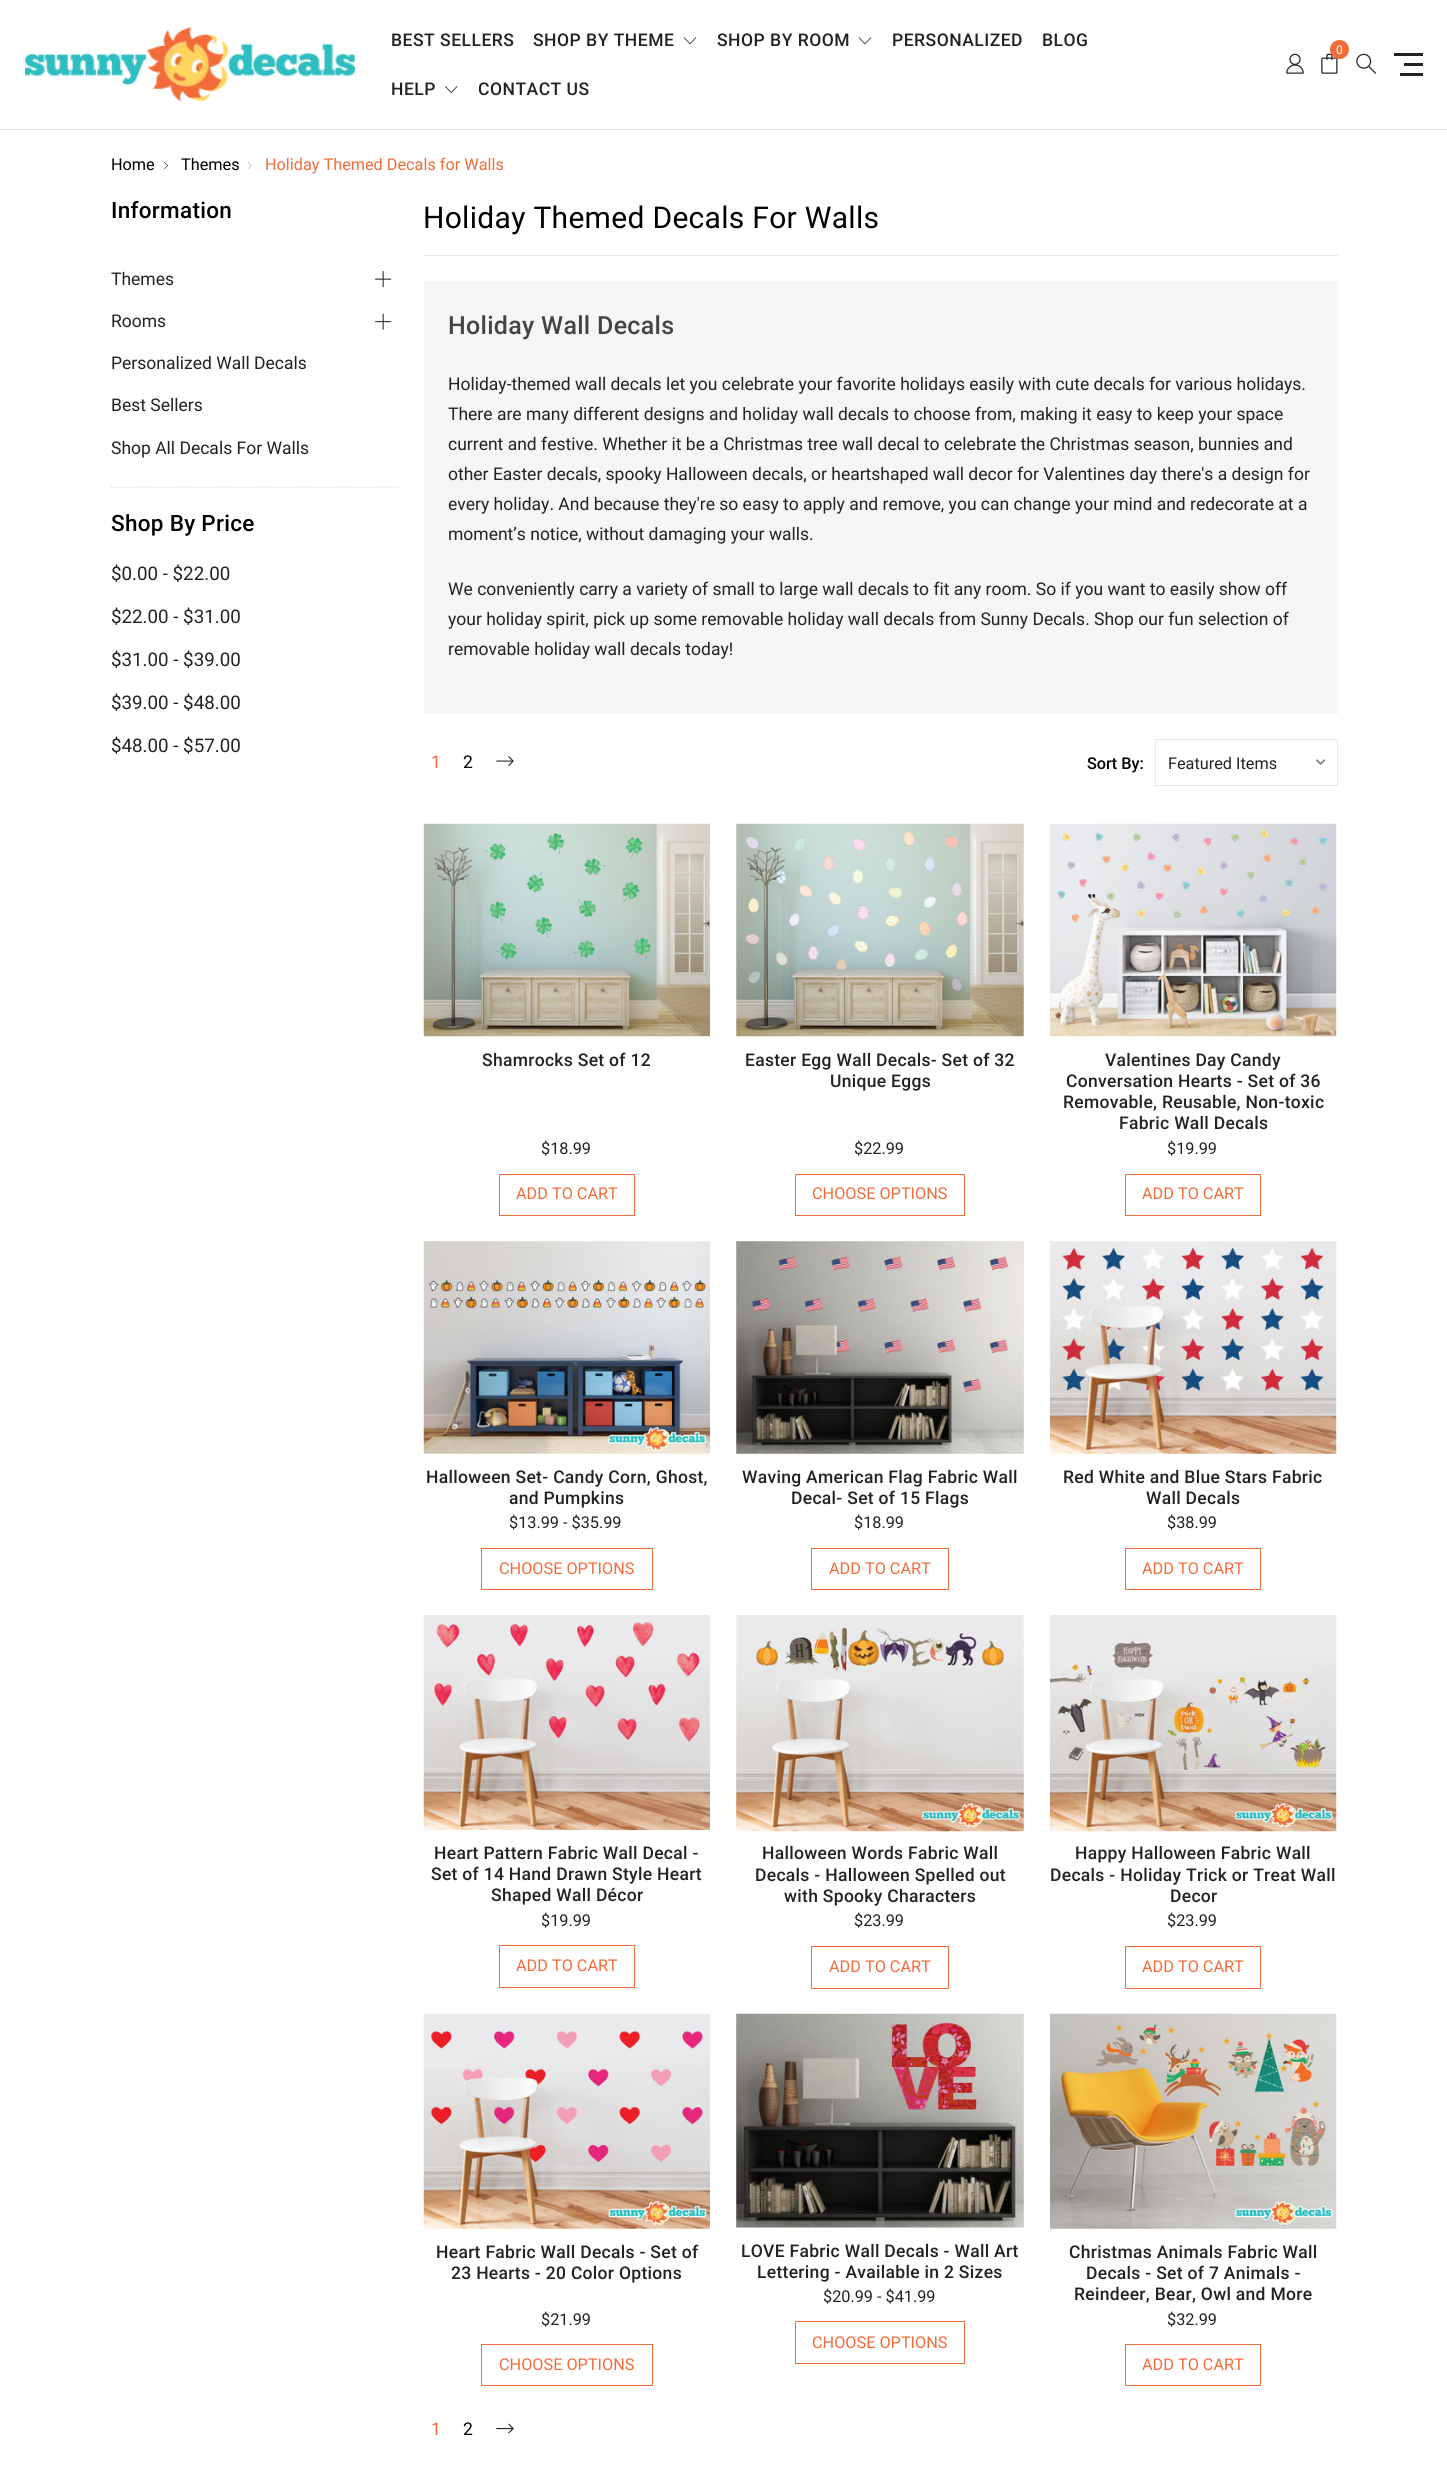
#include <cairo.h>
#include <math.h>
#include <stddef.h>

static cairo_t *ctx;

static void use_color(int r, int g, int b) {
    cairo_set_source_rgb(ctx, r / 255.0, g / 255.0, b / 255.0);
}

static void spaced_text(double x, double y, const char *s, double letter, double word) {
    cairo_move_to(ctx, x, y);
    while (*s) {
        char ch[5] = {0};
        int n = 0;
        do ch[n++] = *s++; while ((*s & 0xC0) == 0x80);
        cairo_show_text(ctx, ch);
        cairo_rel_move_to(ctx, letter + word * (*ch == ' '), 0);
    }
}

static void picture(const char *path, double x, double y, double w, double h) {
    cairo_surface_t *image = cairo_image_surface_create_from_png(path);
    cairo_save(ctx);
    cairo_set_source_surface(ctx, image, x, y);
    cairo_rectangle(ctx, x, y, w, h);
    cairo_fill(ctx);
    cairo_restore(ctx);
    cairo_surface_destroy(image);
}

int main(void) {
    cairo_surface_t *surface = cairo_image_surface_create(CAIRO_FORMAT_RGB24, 1447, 2487);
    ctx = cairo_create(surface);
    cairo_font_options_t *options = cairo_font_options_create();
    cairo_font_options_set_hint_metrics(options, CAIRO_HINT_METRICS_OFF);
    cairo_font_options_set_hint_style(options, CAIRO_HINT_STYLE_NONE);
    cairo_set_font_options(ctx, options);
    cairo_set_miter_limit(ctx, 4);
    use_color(255, 255, 255);
    cairo_paint(ctx);
    use_color(224, 224, 224);
    cairo_rectangle(ctx, 0, 129, 1447, 1);
    cairo_fill(ctx);
    picture("img1.png", 25, 27, 330, 75);
    cairo_select_font_face(ctx, "Roboto Medium", CAIRO_FONT_SLANT_NORMAL, CAIRO_FONT_WEIGHT_NORMAL);
    cairo_set_font_size(ctx, 17.5);
    use_color(34, 34, 34);
    spaced_text(391, 46, "BEST SELLERS", 0.5, 0);
    spaced_text(533, 46, "SHOP BY THEME", 0.5, 0);
    picture("img2.png", 683, 37, 14, 8);
    spaced_text(717, 46, "SHOP BY ROOM", 0.5, 0);
    picture("img2.png", 858, 37, 14, 8);
    spaced_text(892, 46, "PERSONALIZED", 0.5, 0);
    spaced_text(1042, 46, "BLOG", 0.5, 0);
    spaced_text(391, 95, "HELP", 0.5, 0);
    picture("img3.png", 445, 86, 13, 7);
    spaced_text(478, 95, "CONTACT US", 0.5, 0);
    picture("img4.png", 1321, 53, 17, 21);
    use_color(241, 108, 57);
    cairo_arc(ctx, 1339.5, 49.5, 9.5, 0, 2 * M_PI);
    cairo_fill(ctx);
    cairo_select_font_face(ctx, "Roboto", CAIRO_FONT_SLANT_NORMAL, CAIRO_FONT_WEIGHT_NORMAL);
    cairo_set_font_size(ctx, 12);
    use_color(255, 255, 255);
    cairo_move_to(ctx, 1336, 54);
    cairo_show_text(ctx, "0");
    picture("img5.png", 1286, 53, 18, 21);
    picture("img6.png", 1356, 53, 21, 21);
    use_color(34, 34, 34);
    cairo_rectangle(ctx, 1394, 53, 29, 3);
    cairo_fill(ctx);
    cairo_rectangle(ctx, 1404, 63, 19, 3);
    cairo_fill(ctx);
    cairo_rectangle(ctx, 1400, 73, 23, 3);
    cairo_fill(ctx);
    cairo_set_font_size(ctx, 16.25);
    use_color(0, 0, 0);
    cairo_move_to(ctx, 111, 170);
    cairo_show_text(ctx, "Home");
    picture("img7.png", 163, 161, 5, 9);
    cairo_move_to(ctx, 181, 170);
    cairo_show_text(ctx, "Themes");
    picture("img8.png", 247, 161, 5, 9);
    use_color(241, 108, 57);
    cairo_move_to(ctx, 265, 170);
    cairo_show_text(ctx, "Holiday Themed Decals for Walls");
    cairo_select_font_face(ctx, "Roboto Medium", CAIRO_FONT_SLANT_NORMAL, CAIRO_FONT_WEIGHT_NORMAL);
    cairo_set_font_size(ctx, 22.5);
    use_color(0, 0, 0);
    spaced_text(111, 218, "Information", 0.3, 0);
    cairo_select_font_face(ctx, "Roboto", CAIRO_FONT_SLANT_NORMAL, CAIRO_FONT_WEIGHT_NORMAL);
    cairo_set_font_size(ctx, 17.5);
    use_color(34, 34, 34);
    cairo_move_to(ctx, 111, 285);
    cairo_show_text(ctx, "Themes");
    picture("img9.png", 375, 271, 17, 17);
    cairo_move_to(ctx, 111, 327);
    cairo_show_text(ctx, "Rooms");
    picture("img10.png", 375, 313, 17, 17);
    cairo_move_to(ctx, 111, 369);
    cairo_show_text(ctx, "Personalized Wall Decals");
    cairo_move_to(ctx, 111, 411);
    cairo_show_text(ctx, "Best Sellers");
    cairo_move_to(ctx, 111, 454);
    cairo_show_text(ctx, "Shop All Decals For Walls");
    cairo_new_path(ctx);
    cairo_move_to(ctx, 111, 487);
    cairo_line_to(ctx, 399, 487);
    use_color(221, 221, 221);
    cairo_set_line_width(ctx, 1.2);
    cairo_set_dash(ctx, (double[]){1.25, 1.25}, 2, 0);
    cairo_stroke(ctx);
    cairo_select_font_face(ctx, "Roboto Medium", CAIRO_FONT_SLANT_NORMAL, CAIRO_FONT_WEIGHT_NORMAL);
    cairo_set_font_size(ctx, 22.5);
    use_color(0, 0, 0);
    spaced_text(111, 531, "Shop By Price", 0.3, 0);
    cairo_select_font_face(ctx, "Roboto", CAIRO_FONT_SLANT_NORMAL, CAIRO_FONT_WEIGHT_NORMAL);
    cairo_set_font_size(ctx, 18.75);
    use_color(34, 34, 34);
    cairo_move_to(ctx, 111, 580);
    cairo_show_text(ctx, "$0.00 - $22.00");
    cairo_move_to(ctx, 111, 623);
    cairo_show_text(ctx, "$22.00 - $31.00");
    cairo_move_to(ctx, 111, 666);
    cairo_show_text(ctx, "$31.00 - $39.00");
    cairo_move_to(ctx, 111, 709);
    cairo_show_text(ctx, "$39.00 - $48.00");
    cairo_move_to(ctx, 111, 752);
    cairo_show_text(ctx, "$48.00 - $57.00");
    use_color(232, 232, 232);
    cairo_rectangle(ctx, 424, 255, 914, 1);
    cairo_fill(ctx);
    cairo_set_font_size(ctx, 30);
    use_color(0, 0, 0);
    spaced_text(423, 228, "Holiday Themed Decals For Walls", 0.3, 0);
    use_color(246, 246, 246);
    cairo_rectangle(ctx, 424, 281, 914, 433);
    cairo_fill(ctx);
    cairo_select_font_face(ctx, "Roboto Medium", CAIRO_FONT_SLANT_NORMAL, CAIRO_FONT_WEIGHT_NORMAL);
    cairo_set_font_size(ctx, 25);
    use_color(68, 68, 68);
    spaced_text(448, 334, "Holiday Wall Decals", 0.3, 0);
    cairo_select_font_face(ctx, "Roboto", CAIRO_FONT_SLANT_NORMAL, CAIRO_FONT_WEIGHT_NORMAL);
    cairo_set_font_size(ctx, 17.5);
    use_color(34, 34, 34);
    cairo_move_to(ctx, 448, 390);
    cairo_show_text(ctx, "Holiday-themed wall decals let you celebrate your favorite holidays easily with cute decals for various holidays.");
    cairo_move_to(ctx, 448, 420);
    cairo_show_text(ctx, "There are many different designs and holiday wall decals to choose from, making it easy to keep your space");
    cairo_move_to(ctx, 448, 450);
    cairo_show_text(ctx, "current and festive. Whether it be a Christmas tree wall decal to celebrate the Christmas season, bunnies and");
    cairo_move_to(ctx, 448, 480);
    cairo_show_text(ctx, "other Easter decals, spooky Halloween decals, or heartshaped wall decor for Valentines day there's a design for");
    cairo_move_to(ctx, 448, 510);
    cairo_show_text(ctx, "every holiday. And because they're so easy to apply and remove, you can change your mind and redecorate at a");
    cairo_move_to(ctx, 448, 540);
    cairo_show_text(ctx, "moment’s notice, without damaging your walls.");
    cairo_move_to(ctx, 448, 595);
    cairo_show_text(ctx, "We conveniently carry a variety of small to large wall decals to fit any room. So if you want to easily show off");
    cairo_move_to(ctx, 448, 625);
    cairo_show_text(ctx, "your holiday spirit, pick up some removable holiday wall decals from Sunny Decals. Shop our fun selection of");
    cairo_move_to(ctx, 448, 655);
    cairo_show_text(ctx, "removable holiday wall decals today!");
    use_color(241, 108, 57);
    cairo_move_to(ctx, 431, 768);
    cairo_show_text(ctx, "1");
    use_color(0, 0, 0);
    cairo_move_to(ctx, 463, 768);
    cairo_show_text(ctx, "2");
    picture("img11.png", 496, 756, 18, 10);
    cairo_select_font_face(ctx, "Roboto Medium", CAIRO_FONT_SLANT_NORMAL, CAIRO_FONT_WEIGHT_NORMAL);
    cairo_set_font_size(ctx, 16.25);
    cairo_move_to(ctx, 1087, 769);
    cairo_show_text(ctx, "Sort By:");
    picture("img12.png", 1316, 759, 10, 6);
    cairo_rectangle(ctx, 1155.5, 739.5, 182, 46);
    use_color(232, 232, 232);
    cairo_set_line_width(ctx, 1);
    cairo_set_dash(ctx, NULL, 0, 0);
    cairo_stroke(ctx);
    cairo_select_font_face(ctx, "Roboto", CAIRO_FONT_SLANT_NORMAL, CAIRO_FONT_WEIGHT_NORMAL);
    use_color(34, 34, 34);
    cairo_move_to(ctx, 1168, 769);
    cairo_show_text(ctx, "Featured Items");
    picture("img13.png", 423, 823, 287, 214);
    cairo_select_font_face(ctx, "Roboto Medium", CAIRO_FONT_SLANT_NORMAL, CAIRO_FONT_WEIGHT_NORMAL);
    cairo_set_font_size(ctx, 17.5);
    spaced_text(482, 1066, "Shamrocks Set of 12", 0.3, 0);
    cairo_select_font_face(ctx, "Roboto", CAIRO_FONT_SLANT_NORMAL, CAIRO_FONT_WEIGHT_NORMAL);
    cairo_set_font_size(ctx, 16.25);
    cairo_move_to(ctx, 541, 1154);
    cairo_show_text(ctx, "$18.99");
    cairo_rectangle(ctx, 499.5, 1174.5, 135, 41);
    use_color(241, 108, 57);
    cairo_stroke(ctx);
    cairo_move_to(ctx, 516, 1199);
    cairo_show_text(ctx, "ADD TO CART");
    picture("img14.png", 736, 823, 288, 214);
    cairo_select_font_face(ctx, "Roboto Medium", CAIRO_FONT_SLANT_NORMAL, CAIRO_FONT_WEIGHT_NORMAL);
    cairo_set_font_size(ctx, 17.5);
    use_color(34, 34, 34);
    spaced_text(745, 1066, "Easter Egg Wall Decals- Set of 32", 0.3, 0);
    spaced_text(830, 1087, "Unique Eggs", 0.3, 0);
    cairo_select_font_face(ctx, "Roboto", CAIRO_FONT_SLANT_NORMAL, CAIRO_FONT_WEIGHT_NORMAL);
    cairo_set_font_size(ctx, 16.25);
    cairo_move_to(ctx, 854, 1154);
    cairo_show_text(ctx, "$22.99");
    cairo_rectangle(ctx, 795.5, 1174.5, 169, 41);
    use_color(241, 108, 57);
    cairo_stroke(ctx);
    cairo_move_to(ctx, 812, 1199);
    cairo_show_text(ctx, "CHOOSE OPTIONS");
    picture("img15.png", 1050, 823, 287, 214);
    cairo_select_font_face(ctx, "Roboto Medium", CAIRO_FONT_SLANT_NORMAL, CAIRO_FONT_WEIGHT_NORMAL);
    cairo_set_font_size(ctx, 17.5);
    use_color(34, 34, 34);
    spaced_text(1105, 1066, "Valentines Day Candy", 0.3, 0);
    spaced_text(1066, 1087, "Conversation Hearts - Set of 36", 0.3, 0);
    spaced_text(1063, 1108, "Removable, Reusable, Non-toxic", 0.3, 0);
    spaced_text(1119, 1129, "Fabric Wall Decals", 0.3, 0);
    cairo_select_font_face(ctx, "Roboto", CAIRO_FONT_SLANT_NORMAL, CAIRO_FONT_WEIGHT_NORMAL);
    cairo_set_font_size(ctx, 16.25);
    cairo_move_to(ctx, 1167, 1154);
    cairo_show_text(ctx, "$19.99");
    cairo_rectangle(ctx, 1125.5, 1174.5, 135, 41);
    use_color(241, 108, 57);
    cairo_stroke(ctx);
    cairo_move_to(ctx, 1142, 1199);
    cairo_show_text(ctx, "ADD TO CART");
    picture("img16.png", 423, 1241, 287, 213);
    cairo_select_font_face(ctx, "Roboto Medium", CAIRO_FONT_SLANT_NORMAL, CAIRO_FONT_WEIGHT_NORMAL);
    cairo_set_font_size(ctx, 17.5);
    use_color(34, 34, 34);
    spaced_text(426, 1483, "Halloween Set- Candy Corn, Ghost,", 0.3, 0);
    spaced_text(509, 1504, "and Pumpkins", 0.3, 0);
    cairo_select_font_face(ctx, "Roboto", CAIRO_FONT_SLANT_NORMAL, CAIRO_FONT_WEIGHT_NORMAL);
    cairo_set_font_size(ctx, 16.25);
    cairo_move_to(ctx, 509, 1528);
    cairo_show_text(ctx, "$13.99 - $35.99");
    cairo_rectangle(ctx, 481.5, 1548.5, 171, 41);
    use_color(241, 108, 57);
    cairo_stroke(ctx);
    cairo_move_to(ctx, 499, 1574);
    cairo_show_text(ctx, "CHOOSE OPTIONS");
    use_color(248, 248, 248);
    cairo_rectangle(ctx, 736, 1241, 288, 213);
    cairo_fill(ctx);
    picture("img17.png", 736, 1241, 288, 213);
    cairo_select_font_face(ctx, "Roboto Medium", CAIRO_FONT_SLANT_NORMAL, CAIRO_FONT_WEIGHT_NORMAL);
    cairo_set_font_size(ctx, 17.5);
    use_color(34, 34, 34);
    spaced_text(742, 1483, "Waving American Flag Fabric Wall", 0.3, 0);
    spaced_text(791, 1504, "Decal- Set of 15 Flags", 0.3, 0);
    cairo_select_font_face(ctx, "Roboto", CAIRO_FONT_SLANT_NORMAL, CAIRO_FONT_WEIGHT_NORMAL);
    cairo_set_font_size(ctx, 16.25);
    cairo_move_to(ctx, 854, 1528);
    cairo_show_text(ctx, "$18.99");
    cairo_rectangle(ctx, 811.5, 1548.5, 137, 41);
    use_color(241, 108, 57);
    cairo_stroke(ctx);
    cairo_move_to(ctx, 829, 1574);
    cairo_show_text(ctx, "ADD TO CART");
    picture("img18.png", 1050, 1241, 287, 213);
    cairo_select_font_face(ctx, "Roboto Medium", CAIRO_FONT_SLANT_NORMAL, CAIRO_FONT_WEIGHT_NORMAL);
    cairo_set_font_size(ctx, 17.5);
    use_color(34, 34, 34);
    spaced_text(1063, 1483, "Red White and Blue Stars Fabric", 0.3, 0);
    spaced_text(1146, 1504, "Wall Decals", 0.3, 0);
    cairo_select_font_face(ctx, "Roboto", CAIRO_FONT_SLANT_NORMAL, CAIRO_FONT_WEIGHT_NORMAL);
    cairo_set_font_size(ctx, 16.25);
    cairo_move_to(ctx, 1167, 1528);
    cairo_show_text(ctx, "$38.99");
    cairo_rectangle(ctx, 1125.5, 1548.5, 135, 41);
    use_color(241, 108, 57);
    cairo_stroke(ctx);
    cairo_move_to(ctx, 1142, 1574);
    cairo_show_text(ctx, "ADD TO CART");
    picture("img19.png", 423, 1615, 287, 215);
    cairo_select_font_face(ctx, "Roboto Medium", CAIRO_FONT_SLANT_NORMAL, CAIRO_FONT_WEIGHT_NORMAL);
    cairo_set_font_size(ctx, 17.5);
    use_color(34, 34, 34);
    spaced_text(434, 1859, "Heart Pattern Fabric Wall Decal -", 0.3, 0);
    spaced_text(431, 1880, "Set of 14 Hand Drawn Style Heart", 0.3, 0);
    spaced_text(491, 1901, "Shaped Wall Décor", 0.3, 0);
    cairo_select_font_face(ctx, "Roboto", CAIRO_FONT_SLANT_NORMAL, CAIRO_FONT_WEIGHT_NORMAL);
    cairo_set_font_size(ctx, 16.25);
    cairo_move_to(ctx, 541, 1926);
    cairo_show_text(ctx, "$19.99");
    cairo_rectangle(ctx, 499.5, 1945.5, 135, 42);
    use_color(241, 108, 57);
    cairo_stroke(ctx);
    cairo_move_to(ctx, 516, 1971);
    cairo_show_text(ctx, "ADD TO CART");
    picture("img20.png", 736, 1615, 288, 217);
    cairo_select_font_face(ctx, "Roboto Medium", CAIRO_FONT_SLANT_NORMAL, CAIRO_FONT_WEIGHT_NORMAL);
    cairo_set_font_size(ctx, 17.5);
    use_color(34, 34, 34);
    spaced_text(762, 1859, "Halloween Words Fabric Wall", 0.3, 0);
    spaced_text(755, 1881, "Decals - Halloween Spelled out", 0.3, 0);
    spaced_text(784, 1902, "with Spooky Characters", 0.3, 0);
    cairo_select_font_face(ctx, "Roboto", CAIRO_FONT_SLANT_NORMAL, CAIRO_FONT_WEIGHT_NORMAL);
    cairo_set_font_size(ctx, 16.25);
    cairo_move_to(ctx, 854, 1926);
    cairo_show_text(ctx, "$23.99");
    cairo_rectangle(ctx, 811.5, 1946.5, 137, 42);
    use_color(241, 108, 57);
    cairo_stroke(ctx);
    cairo_move_to(ctx, 829, 1972);
    cairo_show_text(ctx, "ADD TO CART");
    picture("img21.png", 1050, 1615, 287, 217);
    cairo_select_font_face(ctx, "Roboto Medium", CAIRO_FONT_SLANT_NORMAL, CAIRO_FONT_WEIGHT_NORMAL);
    cairo_set_font_size(ctx, 17.5);
    use_color(34, 34, 34);
    spaced_text(1075, 1859, "Happy Halloween Fabric Wall", 0.3, 0);
    spaced_text(1050, 1881, "Decals - Holiday Trick or Treat Wall", 0.3, 0);
    spaced_text(1170, 1902, "Decor", 0.3, 0);
    cairo_select_font_face(ctx, "Roboto", CAIRO_FONT_SLANT_NORMAL, CAIRO_FONT_WEIGHT_NORMAL);
    cairo_set_font_size(ctx, 16.25);
    cairo_move_to(ctx, 1167, 1926);
    cairo_show_text(ctx, "$23.99");
    cairo_rectangle(ctx, 1125.5, 1946.5, 135, 42);
    use_color(241, 108, 57);
    cairo_stroke(ctx);
    cairo_move_to(ctx, 1142, 1972);
    cairo_show_text(ctx, "ADD TO CART");
    picture("img22.png", 423, 2013, 287, 216);
    cairo_select_font_face(ctx, "Roboto Medium", CAIRO_FONT_SLANT_NORMAL, CAIRO_FONT_WEIGHT_NORMAL);
    cairo_set_font_size(ctx, 17.5);
    use_color(34, 34, 34);
    spaced_text(436, 2258, "Heart Fabric Wall Decals - Set of", 0.3, 0);
    spaced_text(451, 2279, "23 Hearts - 20 Color Options", 0.3, 0);
    cairo_select_font_face(ctx, "Roboto", CAIRO_FONT_SLANT_NORMAL, CAIRO_FONT_WEIGHT_NORMAL);
    cairo_set_font_size(ctx, 16.25);
    cairo_move_to(ctx, 541, 2325);
    cairo_show_text(ctx, "$21.99");
    cairo_rectangle(ctx, 481.5, 2344.5, 171, 41);
    use_color(241, 108, 57);
    cairo_stroke(ctx);
    cairo_move_to(ctx, 499, 2370);
    cairo_show_text(ctx, "CHOOSE OPTIONS");
    use_color(248, 248, 248);
    cairo_rectangle(ctx, 736, 2014, 288, 214);
    cairo_fill(ctx);
    picture("img23.png", 736, 2013, 288, 215);
    cairo_select_font_face(ctx, "Roboto Medium", CAIRO_FONT_SLANT_NORMAL, CAIRO_FONT_WEIGHT_NORMAL);
    cairo_set_font_size(ctx, 17.5);
    use_color(34, 34, 34);
    spaced_text(741, 2257, "LOVE Fabric Wall Decals - Wall Art", 0.3, 0);
    spaced_text(757, 2278, "Lettering - Available in 2 Sizes", 0.3, 0);
    cairo_select_font_face(ctx, "Roboto", CAIRO_FONT_SLANT_NORMAL, CAIRO_FONT_WEIGHT_NORMAL);
    cairo_set_font_size(ctx, 16.25);
    cairo_move_to(ctx, 823, 2302);
    cairo_show_text(ctx, "$20.99 - $41.99");
    cairo_rectangle(ctx, 795.5, 2321.5, 169, 42);
    use_color(241, 108, 57);
    cairo_stroke(ctx);
    cairo_move_to(ctx, 812, 2348);
    cairo_show_text(ctx, "CHOOSE OPTIONS");
    picture("img24.png", 1050, 2013, 287, 216);
    cairo_select_font_face(ctx, "Roboto Medium", CAIRO_FONT_SLANT_NORMAL, CAIRO_FONT_WEIGHT_NORMAL);
    cairo_set_font_size(ctx, 17.5);
    use_color(34, 34, 34);
    spaced_text(1069, 2258, "Christmas Animals Fabric Wall", 0.3, 0);
    spaced_text(1086, 2279, "Decals - Set of 7 Animals -", 0.3, 0);
    spaced_text(1074, 2300, "Reindeer, Bear, Owl and More", 0.3, 0);
    cairo_select_font_face(ctx, "Roboto", CAIRO_FONT_SLANT_NORMAL, CAIRO_FONT_WEIGHT_NORMAL);
    cairo_set_font_size(ctx, 16.25);
    cairo_move_to(ctx, 1167, 2325);
    cairo_show_text(ctx, "$32.99");
    cairo_rectangle(ctx, 1125.5, 2344.5, 135, 41);
    use_color(241, 108, 57);
    cairo_stroke(ctx);
    cairo_move_to(ctx, 1142, 2370);
    cairo_show_text(ctx, "ADD TO CART");
    cairo_set_font_size(ctx, 17.5);
    cairo_move_to(ctx, 431, 2435);
    cairo_show_text(ctx, "1");
    use_color(0, 0, 0);
    cairo_move_to(ctx, 463, 2435);
    cairo_show_text(ctx, "2");
    picture("img25.png", 496, 2423, 18, 11);
    cairo_surface_write_to_png(surface, "result.png");
    cairo_font_options_destroy(options);
    cairo_destroy(ctx);
    cairo_surface_destroy(surface);
    return 0;
}
